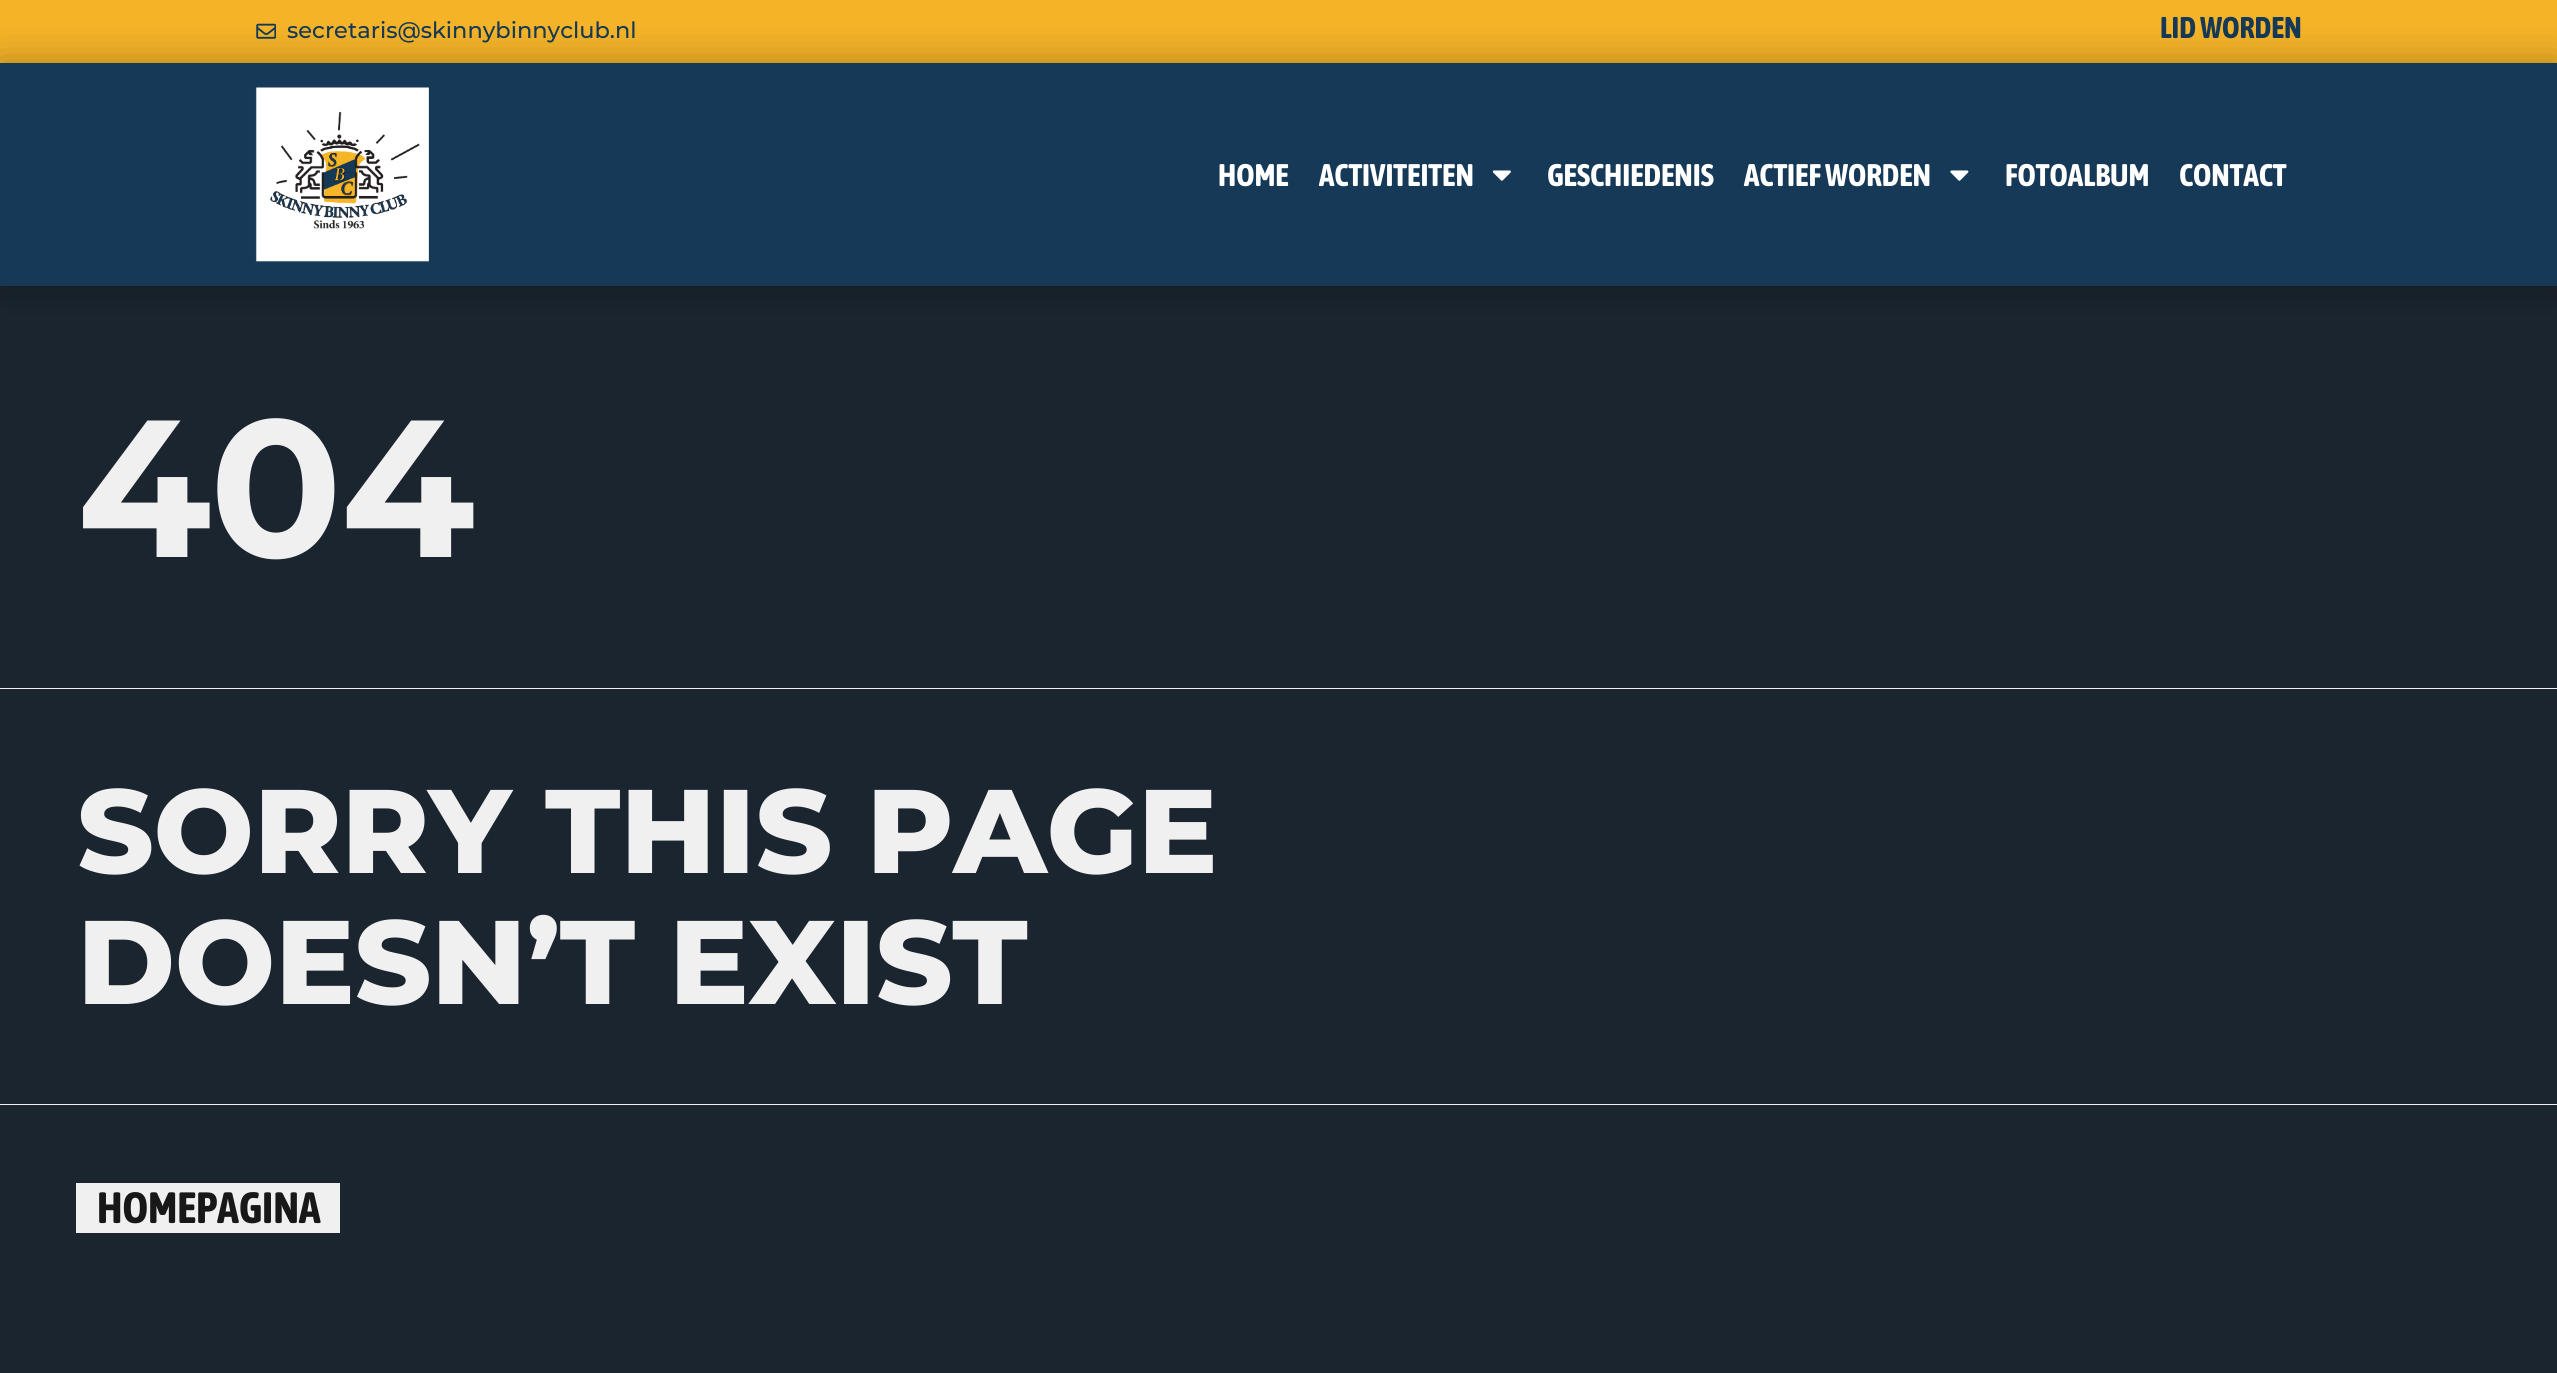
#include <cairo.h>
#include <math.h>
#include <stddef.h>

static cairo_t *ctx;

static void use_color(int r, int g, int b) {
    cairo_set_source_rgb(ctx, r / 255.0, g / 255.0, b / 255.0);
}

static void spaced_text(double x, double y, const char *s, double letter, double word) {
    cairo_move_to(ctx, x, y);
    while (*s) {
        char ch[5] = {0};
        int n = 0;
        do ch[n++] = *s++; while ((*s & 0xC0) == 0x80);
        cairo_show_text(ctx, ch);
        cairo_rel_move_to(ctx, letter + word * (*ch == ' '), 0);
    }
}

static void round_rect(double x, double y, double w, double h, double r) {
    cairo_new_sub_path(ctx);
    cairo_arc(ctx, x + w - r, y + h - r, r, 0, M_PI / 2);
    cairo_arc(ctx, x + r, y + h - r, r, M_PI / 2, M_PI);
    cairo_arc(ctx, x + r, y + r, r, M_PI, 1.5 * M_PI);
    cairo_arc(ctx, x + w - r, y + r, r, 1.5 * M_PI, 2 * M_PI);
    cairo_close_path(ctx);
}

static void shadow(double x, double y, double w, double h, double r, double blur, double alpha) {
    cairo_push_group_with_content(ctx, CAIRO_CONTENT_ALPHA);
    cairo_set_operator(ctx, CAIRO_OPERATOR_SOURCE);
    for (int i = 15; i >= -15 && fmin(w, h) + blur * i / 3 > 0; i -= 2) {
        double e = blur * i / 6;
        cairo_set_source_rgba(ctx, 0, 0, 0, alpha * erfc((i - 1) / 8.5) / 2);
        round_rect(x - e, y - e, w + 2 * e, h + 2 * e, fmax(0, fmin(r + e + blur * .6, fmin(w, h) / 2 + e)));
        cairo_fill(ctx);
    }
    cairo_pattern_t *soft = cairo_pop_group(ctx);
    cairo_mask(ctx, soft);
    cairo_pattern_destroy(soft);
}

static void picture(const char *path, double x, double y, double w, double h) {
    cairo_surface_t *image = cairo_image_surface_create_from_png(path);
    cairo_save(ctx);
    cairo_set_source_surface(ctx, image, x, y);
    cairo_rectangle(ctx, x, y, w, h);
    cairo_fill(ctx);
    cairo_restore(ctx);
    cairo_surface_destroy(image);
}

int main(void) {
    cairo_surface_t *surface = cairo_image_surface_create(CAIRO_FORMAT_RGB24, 2557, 1373);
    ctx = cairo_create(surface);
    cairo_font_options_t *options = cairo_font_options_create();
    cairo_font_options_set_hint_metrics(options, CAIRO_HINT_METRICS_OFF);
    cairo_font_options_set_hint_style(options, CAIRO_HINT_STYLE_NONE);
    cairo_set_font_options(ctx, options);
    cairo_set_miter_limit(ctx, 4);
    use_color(27, 37, 47);
    cairo_paint(ctx);
    use_color(245, 180, 40);
    cairo_rectangle(ctx, 0, 0, 2557, 63);
    cairo_fill(ctx);
    picture("img1.png", 256, 23, 20, 16);
    cairo_select_font_face(ctx, "Montserrat Medium", CAIRO_FONT_SLANT_NORMAL, CAIRO_FONT_WEIGHT_NORMAL);
    cairo_set_font_size(ctx, 22.5);
    use_color(21, 57, 86);
    cairo_move_to(ctx, 287, 38);
    cairo_show_text(ctx, "secretaris@skinnybinnyclub.nl");
    cairo_select_font_face(ctx, "Asap Condensed", CAIRO_FONT_SLANT_NORMAL, CAIRO_FONT_WEIGHT_BOLD);
    cairo_set_font_size(ctx, 30);
    cairo_move_to(ctx, 2160, 38);
    cairo_show_text(ctx, "LID WORDEN");
    use_color(0, 0, 0);
    shadow(0, 63, 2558, 223, 0, 19, 0.3);
    use_color(21, 57, 86);
    cairo_rectangle(ctx, 0, 63, 2557, 223);
    cairo_fill(ctx);
    picture("img2.png", 255, 87, 174, 175);
    cairo_set_font_size(ctx, 31.25);
    use_color(255, 255, 255);
    cairo_move_to(ctx, 1218, 186);
    cairo_show_text(ctx, "HOME");
    cairo_move_to(ctx, 1319, 186);
    cairo_show_text(ctx, "ACTIVITEITEN");
    picture("img3.png", 1492, 170, 19, 11);
    cairo_move_to(ctx, 1547, 186);
    cairo_show_text(ctx, "GESCHIEDENIS");
    cairo_move_to(ctx, 1744, 186);
    cairo_show_text(ctx, "ACTIEF WORDEN");
    picture("img4.png", 1950, 170, 19, 11);
    cairo_move_to(ctx, 2005, 186);
    cairo_show_text(ctx, "FOTOALBUM");
    cairo_move_to(ctx, 2179, 186);
    cairo_show_text(ctx, "CONTACT");
    cairo_select_font_face(ctx, "Montserrat", CAIRO_FONT_SLANT_NORMAL, CAIRO_FONT_WEIGHT_BOLD);
    cairo_set_font_size(ctx, 195);
    use_color(240, 240, 240);
    spaced_text(77, 557, "404", -1.5, 0);
    cairo_rectangle(ctx, 0, 688, 2557, 1);
    cairo_fill(ctx);
    cairo_rectangle(ctx, 0, 1104, 2557, 1);
    cairo_fill(ctx);
    cairo_select_font_face(ctx, "Montserrat ExtraBold", CAIRO_FONT_SLANT_NORMAL, CAIRO_FONT_WEIGHT_NORMAL);
    cairo_set_font_size(ctx, 118.75);
    spaced_text(77, 873, "SORRY THIS PAGE", -0.3, 0);
    spaced_text(77, 1004, "DOESN’T EXIST", -0.3, 0);
    cairo_rectangle(ctx, 76, 1183, 264, 50);
    cairo_fill(ctx);
    cairo_select_font_face(ctx, "Asap Condensed", CAIRO_FONT_SLANT_NORMAL, CAIRO_FONT_WEIGHT_BOLD);
    cairo_set_font_size(ctx, 43.75);
    use_color(24, 24, 24);
    cairo_move_to(ctx, 97, 1223);
    cairo_show_text(ctx, "HOMEPAGINA");
    cairo_surface_write_to_png(surface, "result.png");
    cairo_font_options_destroy(options);
    cairo_destroy(ctx);
    cairo_surface_destroy(surface);
    return 0;
}
